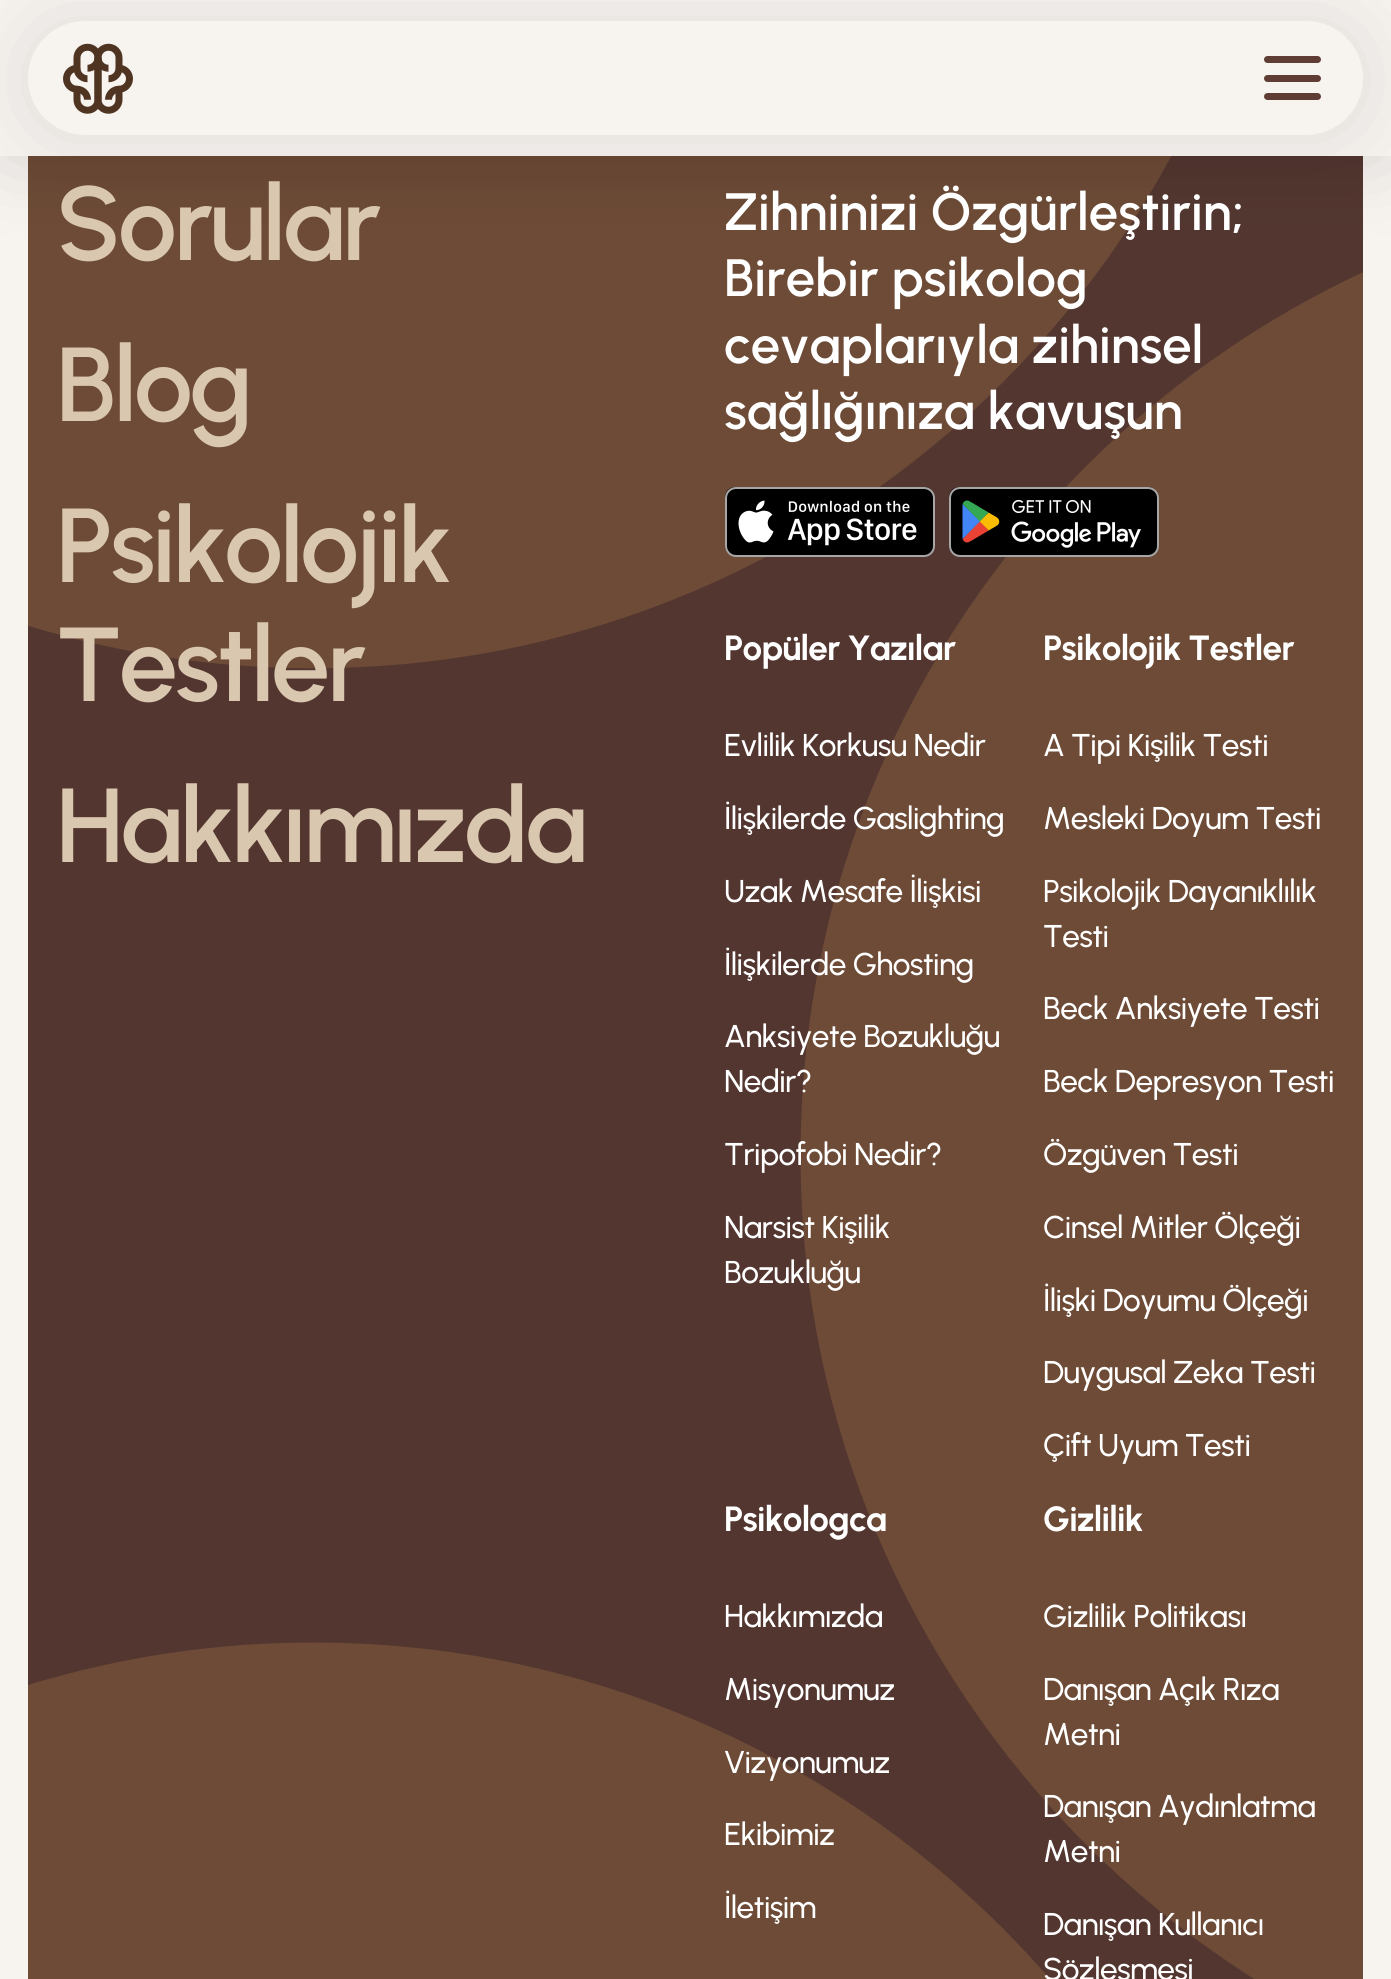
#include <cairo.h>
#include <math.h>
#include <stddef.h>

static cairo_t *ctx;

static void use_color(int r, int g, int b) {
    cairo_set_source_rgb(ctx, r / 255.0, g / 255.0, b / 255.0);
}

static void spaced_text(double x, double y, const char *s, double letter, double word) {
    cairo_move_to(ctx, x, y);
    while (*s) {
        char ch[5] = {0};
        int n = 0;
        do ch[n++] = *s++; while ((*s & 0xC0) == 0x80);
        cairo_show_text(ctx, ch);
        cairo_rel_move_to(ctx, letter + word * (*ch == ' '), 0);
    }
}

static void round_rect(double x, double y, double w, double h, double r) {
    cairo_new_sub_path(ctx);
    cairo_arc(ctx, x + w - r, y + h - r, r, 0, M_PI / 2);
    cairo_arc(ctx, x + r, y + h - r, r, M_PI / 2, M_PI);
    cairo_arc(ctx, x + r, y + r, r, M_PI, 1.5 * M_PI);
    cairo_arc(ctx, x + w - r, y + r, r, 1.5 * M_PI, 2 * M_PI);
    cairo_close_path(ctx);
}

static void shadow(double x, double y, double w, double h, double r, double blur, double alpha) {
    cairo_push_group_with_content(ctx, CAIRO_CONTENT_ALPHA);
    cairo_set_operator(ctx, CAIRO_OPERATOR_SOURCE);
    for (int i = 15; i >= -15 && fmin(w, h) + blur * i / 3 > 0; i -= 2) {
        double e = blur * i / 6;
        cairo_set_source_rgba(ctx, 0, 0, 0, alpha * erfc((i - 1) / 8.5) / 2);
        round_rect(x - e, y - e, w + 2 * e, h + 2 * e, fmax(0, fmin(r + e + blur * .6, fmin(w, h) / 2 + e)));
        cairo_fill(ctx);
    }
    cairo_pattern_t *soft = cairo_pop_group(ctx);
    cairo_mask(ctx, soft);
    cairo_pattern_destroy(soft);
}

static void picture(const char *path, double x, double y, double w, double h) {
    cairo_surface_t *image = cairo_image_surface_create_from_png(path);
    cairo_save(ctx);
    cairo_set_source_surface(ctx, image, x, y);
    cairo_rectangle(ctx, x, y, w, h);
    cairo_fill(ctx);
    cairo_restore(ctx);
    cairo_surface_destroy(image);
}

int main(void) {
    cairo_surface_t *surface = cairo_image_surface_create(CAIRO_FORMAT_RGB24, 1391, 1979);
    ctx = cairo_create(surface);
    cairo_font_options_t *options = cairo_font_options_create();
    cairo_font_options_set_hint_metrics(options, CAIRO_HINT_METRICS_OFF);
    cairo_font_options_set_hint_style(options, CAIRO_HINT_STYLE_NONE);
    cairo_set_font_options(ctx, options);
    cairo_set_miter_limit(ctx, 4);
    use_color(247, 243, 239);
    cairo_paint(ctx);
    use_color(83, 54, 48);
    cairo_rectangle(ctx, 28, 156, 1335, 1823);
    cairo_fill(ctx);
    picture("img2.png", 28, 156, 1335, 1823);
    use_color(0, 0, 0);
    shadow(0, 2, 1391, 156, 0, 44, 0.1);
    use_color(247, 243, 239);
    cairo_rectangle(ctx, 0, 0, 1391, 156);
    cairo_fill(ctx);
    use_color(0, 0, 0);
    shadow(28, 23, 1335, 114, 57, 44, 0.1);
    use_color(247, 243, 239);
    round_rect(28, 21, 1335, 114, 57);
    cairo_fill(ctx);
    picture("img1.png", 63, 43, 70, 71);
    use_color(95, 61, 52);
    round_rect(1264, 56, 57, 7, 3.5);
    cairo_fill(ctx);
    round_rect(1264, 75, 57, 7, 3.5);
    cairo_fill(ctx);
    round_rect(1264, 93, 57, 7, 3.5);
    cairo_fill(ctx);
    cairo_select_font_face(ctx, "Urbanist SemiBold", CAIRO_FONT_SLANT_NORMAL, CAIRO_FONT_WEIGHT_NORMAL);
    cairo_set_font_size(ctx, 105);
    use_color(217, 199, 175);
    spaced_text(56, 260, "Sorular", -3.1, 0);
    spaced_text(56, 421, "Blog", -3.1, 0);
    spaced_text(56, 582, "Psikolojik", -3.1, 0);
    spaced_text(56, 701, "Testler", -3.1, 0);
    spaced_text(56, 862, "Hakkımızda", -3.1, 0);
    cairo_set_font_size(ctx, 52.5);
    use_color(255, 255, 255);
    cairo_move_to(ctx, 724, 230);
    cairo_show_text(ctx, "Zihninizi Özgürleştirin;");
    cairo_move_to(ctx, 724, 296);
    cairo_show_text(ctx, "Birebir psikolog");
    cairo_move_to(ctx, 724, 363);
    cairo_show_text(ctx, "cevaplarıyla zihinsel");
    cairo_move_to(ctx, 724, 429);
    cairo_show_text(ctx, "sağlığınıza kavuşun");
    picture("img3.png", 725, 487, 210, 70);
    picture("img4.png", 949, 487, 210, 70);
    cairo_select_font_face(ctx, "Urbanist", CAIRO_FONT_SLANT_NORMAL, CAIRO_FONT_WEIGHT_BOLD);
    cairo_set_font_size(ctx, 35);
    spaced_text(724, 660, "Popüler Yazılar", -0.75, 0);
    cairo_select_font_face(ctx, "Urbanist Medium", CAIRO_FONT_SLANT_NORMAL, CAIRO_FONT_WEIGHT_NORMAL);
    cairo_set_font_size(ctx, 31.5);
    spaced_text(724, 756, "Evlilik Korkusu Nedir", -0.6, 0);
    spaced_text(724, 829, "İlişkilerde Gaslighting", -0.6, 0);
    spaced_text(724, 902, "Uzak Mesafe İlişkisi", -0.6, 0);
    spaced_text(724, 975, "İlişkilerde Ghosting", -0.6, 0);
    spaced_text(724, 1047, "Anksiyete Bozukluğu", -0.6, 0);
    spaced_text(724, 1092, "Nedir?", -0.6, 0);
    spaced_text(724, 1165, "Tripofobi Nedir?", -0.6, 0);
    spaced_text(724, 1238, "Narsist Kişilik", -0.6, 0);
    spaced_text(724, 1283, "Bozukluğu", -0.6, 0);
    cairo_select_font_face(ctx, "Urbanist", CAIRO_FONT_SLANT_NORMAL, CAIRO_FONT_WEIGHT_BOLD);
    cairo_set_font_size(ctx, 35);
    spaced_text(1043, 660, "Psikolojik Testler", -0.75, 0);
    cairo_select_font_face(ctx, "Urbanist Medium", CAIRO_FONT_SLANT_NORMAL, CAIRO_FONT_WEIGHT_NORMAL);
    cairo_set_font_size(ctx, 31.5);
    spaced_text(1043, 756, "A Tipi Kişilik Testi", -0.6, 0);
    spaced_text(1043, 829, "Mesleki Doyum Testi", -0.6, 0);
    spaced_text(1043, 902, "Psikolojik Dayanıklılık", -0.6, 0);
    spaced_text(1043, 947, "Testi", -0.6, 0);
    spaced_text(1043, 1019, "Beck Anksiyete Testi", -0.6, 0);
    spaced_text(1043, 1092, "Beck Depresyon Testi", -0.6, 0);
    spaced_text(1043, 1165, "Özgüven Testi", -0.6, 0);
    spaced_text(1043, 1238, "Cinsel Mitler Ölçeği", -0.6, 0);
    spaced_text(1043, 1311, "İlişki Doyumu Ölçeği", -0.6, 0);
    spaced_text(1043, 1383, "Duygusal Zeka Testi", -0.6, 0);
    spaced_text(1043, 1456, "Çift Uyum Testi", -0.6, 0);
    cairo_select_font_face(ctx, "Urbanist", CAIRO_FONT_SLANT_NORMAL, CAIRO_FONT_WEIGHT_BOLD);
    cairo_set_font_size(ctx, 35);
    spaced_text(724, 1531, "Psikologca", -0.75, 0);
    cairo_select_font_face(ctx, "Urbanist Medium", CAIRO_FONT_SLANT_NORMAL, CAIRO_FONT_WEIGHT_NORMAL);
    cairo_set_font_size(ctx, 31.5);
    spaced_text(724, 1627, "Hakkımızda", -0.6, 0);
    spaced_text(724, 1700, "Misyonumuz", -0.6, 0);
    spaced_text(724, 1773, "Vizyonumuz", -0.6, 0);
    spaced_text(724, 1845, "Ekibimiz", -0.6, 0);
    spaced_text(724, 1918, "İletişim", -0.6, 0);
    cairo_select_font_face(ctx, "Urbanist", CAIRO_FONT_SLANT_NORMAL, CAIRO_FONT_WEIGHT_BOLD);
    cairo_set_font_size(ctx, 35);
    spaced_text(1043, 1531, "Gizlilik", -0.75, 0);
    cairo_select_font_face(ctx, "Urbanist Medium", CAIRO_FONT_SLANT_NORMAL, CAIRO_FONT_WEIGHT_NORMAL);
    cairo_set_font_size(ctx, 31.5);
    spaced_text(1043, 1627, "Gizlilik Politikası", -0.6, 0);
    spaced_text(1043, 1700, "Danışan Açık Rıza", -0.6, 0);
    spaced_text(1043, 1745, "Metni", -0.6, 0);
    spaced_text(1043, 1817, "Danışan Aydınlatma", -0.6, 0);
    spaced_text(1043, 1862, "Metni", -0.6, 0);
    spaced_text(1043, 1935, "Danışan Kullanıcı", -0.6, 0);
    spaced_text(1043, 1980, "Sözleşmesi", -0.6, 0);
    cairo_surface_write_to_png(surface, "result.png");
    cairo_font_options_destroy(options);
    cairo_destroy(ctx);
    cairo_surface_destroy(surface);
    return 0;
}
